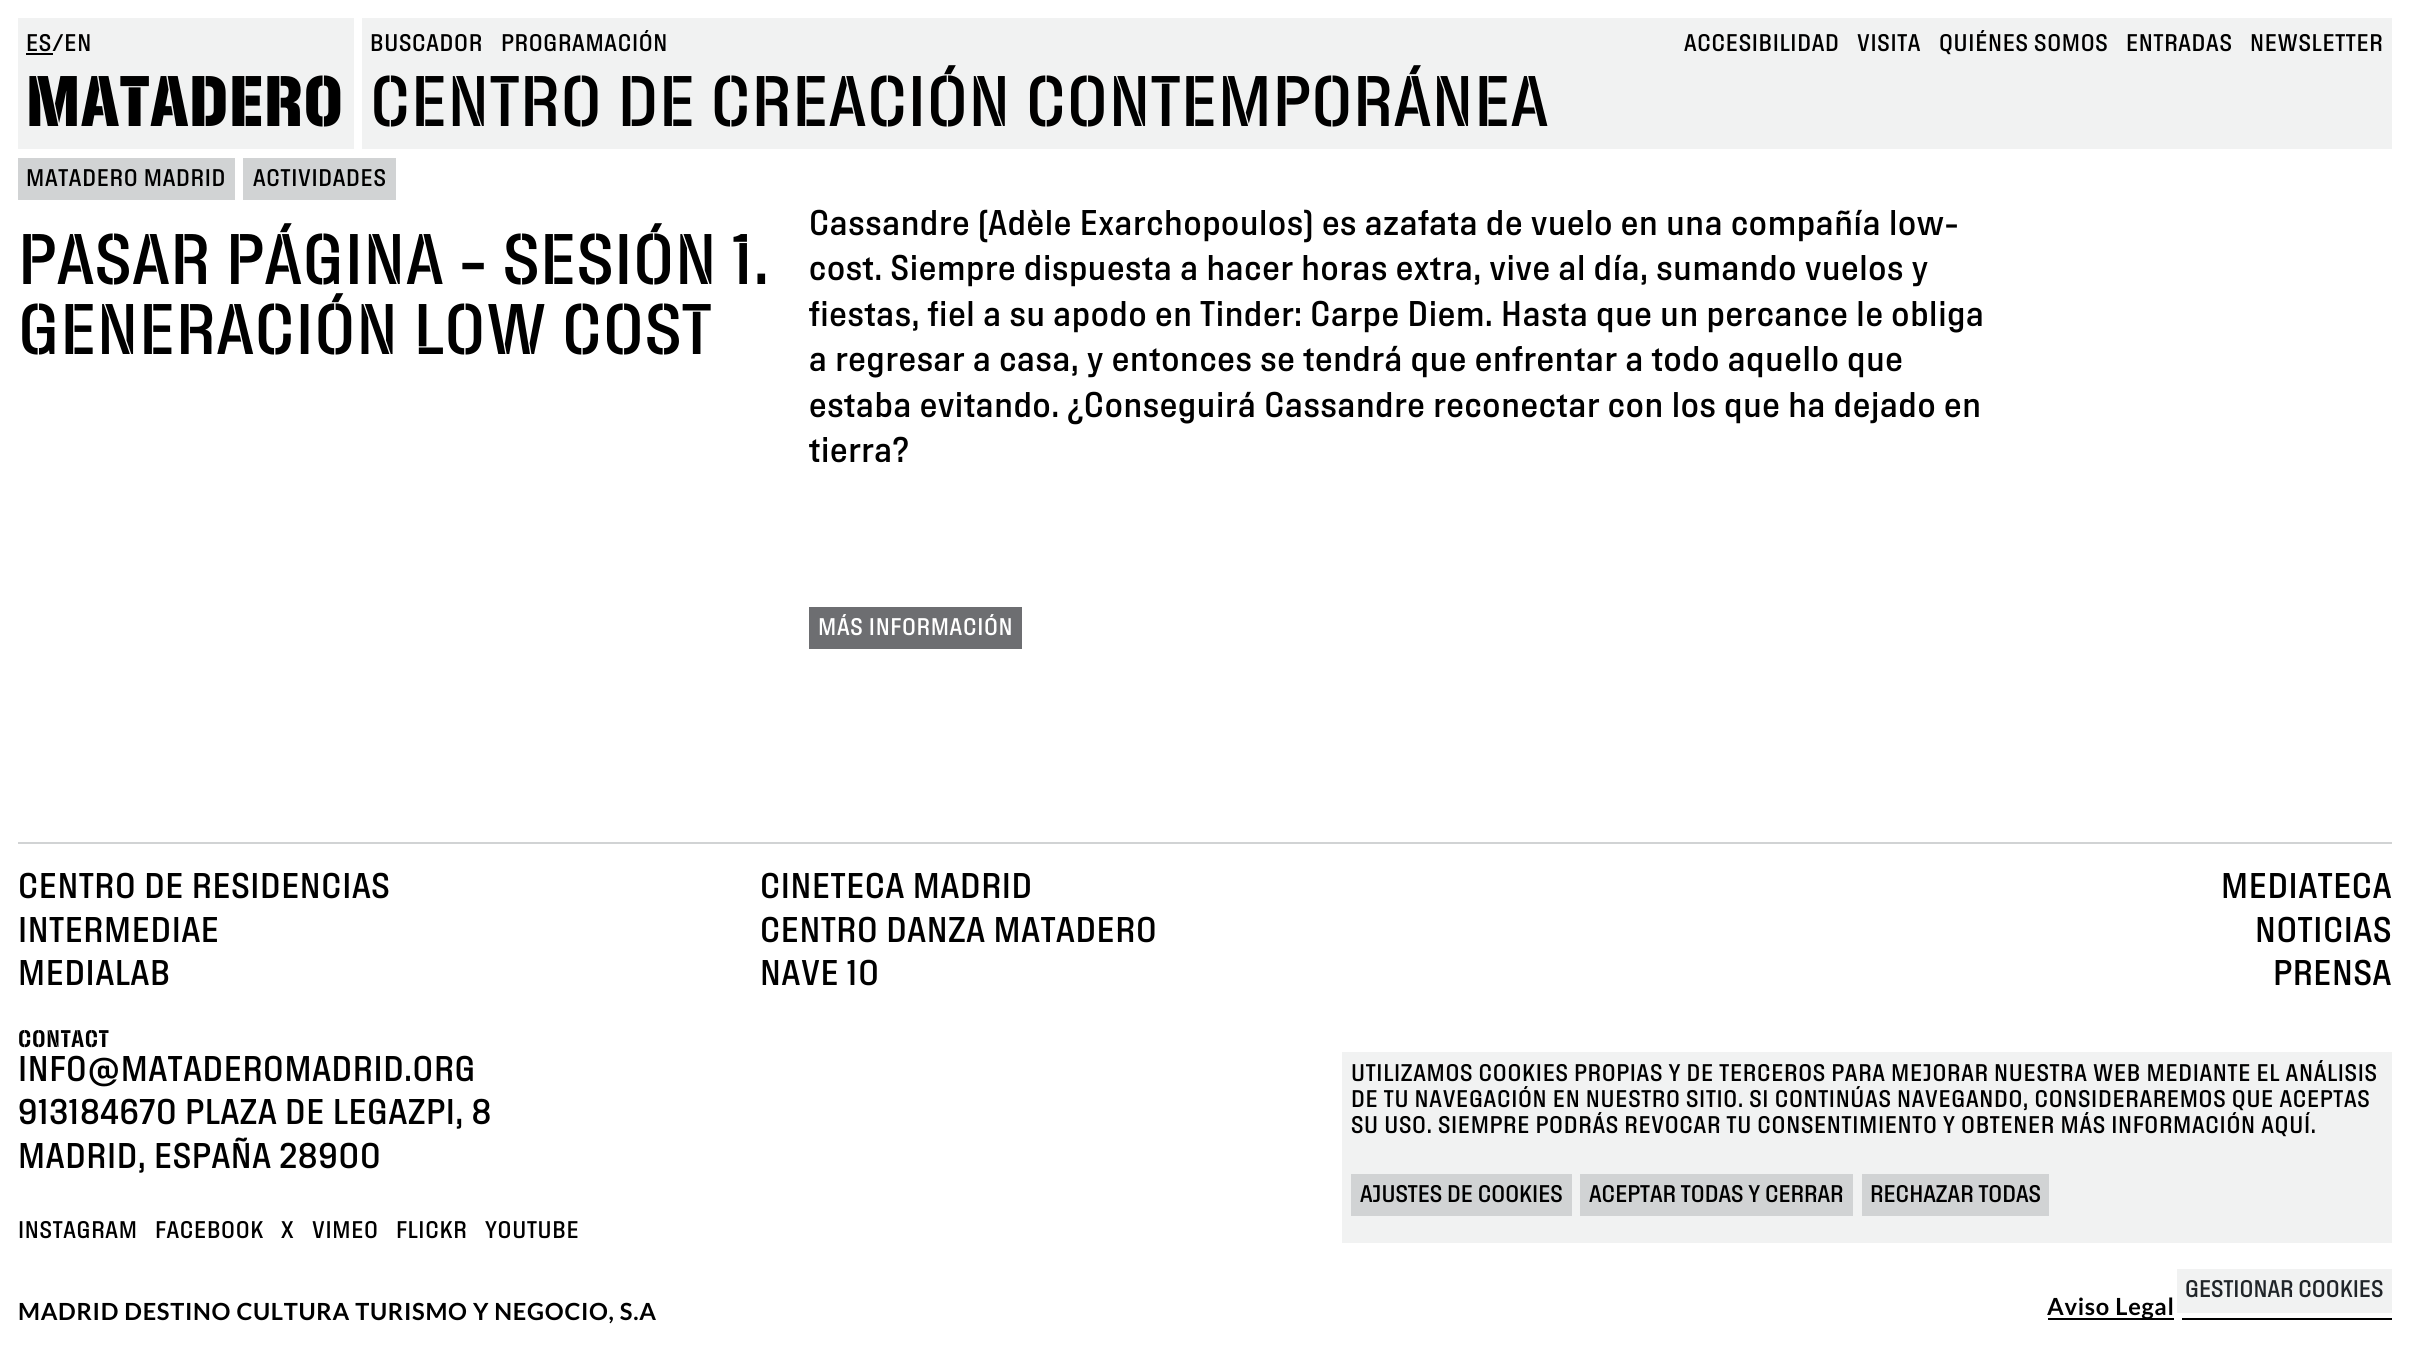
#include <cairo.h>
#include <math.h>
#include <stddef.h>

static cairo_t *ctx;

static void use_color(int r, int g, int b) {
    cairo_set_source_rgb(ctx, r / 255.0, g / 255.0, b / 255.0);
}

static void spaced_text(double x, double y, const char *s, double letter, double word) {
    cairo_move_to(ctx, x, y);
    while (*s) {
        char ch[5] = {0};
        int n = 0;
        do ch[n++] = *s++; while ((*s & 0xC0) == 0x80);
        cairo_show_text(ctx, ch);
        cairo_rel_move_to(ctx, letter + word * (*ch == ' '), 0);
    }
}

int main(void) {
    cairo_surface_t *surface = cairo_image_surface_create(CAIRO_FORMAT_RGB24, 2409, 1346);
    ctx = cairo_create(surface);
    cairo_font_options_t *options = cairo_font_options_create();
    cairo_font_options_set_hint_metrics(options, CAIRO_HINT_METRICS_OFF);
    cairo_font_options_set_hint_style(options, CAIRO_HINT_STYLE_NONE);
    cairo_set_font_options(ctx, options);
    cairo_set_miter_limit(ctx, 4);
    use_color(255, 255, 255);
    cairo_paint(ctx);
    use_color(241, 242, 242);
    cairo_rectangle(ctx, 18, 18, 336, 131);
    cairo_fill(ctx);
    cairo_select_font_face(ctx, "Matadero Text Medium", CAIRO_FONT_SLANT_NORMAL, CAIRO_FONT_WEIGHT_NORMAL);
    cairo_set_font_size(ctx, 23.6);
    use_color(0, 0, 0);
    spaced_text(26, 51, "ES/EN", 0.7, 0);
    cairo_rectangle(ctx, 26, 53, 27, 2);
    cairo_fill(ctx);
    cairo_select_font_face(ctx, "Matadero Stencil", CAIRO_FONT_SLANT_NORMAL, CAIRO_FONT_WEIGHT_BOLD);
    cairo_set_font_size(ctx, 70);
    spaced_text(26, 126, "MATADERO", 0.7, 0);
    use_color(241, 242, 242);
    cairo_rectangle(ctx, 362, 18, 2030, 131);
    cairo_fill(ctx);
    cairo_select_font_face(ctx, "Matadero Text Medium", CAIRO_FONT_SLANT_NORMAL, CAIRO_FONT_WEIGHT_NORMAL);
    cairo_set_font_size(ctx, 23.6);
    use_color(0, 0, 0);
    spaced_text(370, 51, "BUSCADOR", 0.7, 0);
    spaced_text(501, 51, "PROGRAMACIÓN", 0.7, 0);
    spaced_text(1684, 51, "ACCESIBILIDAD", 0.7, 0);
    spaced_text(1857, 51, "VISITA", 0.7, 0);
    spaced_text(1939, 51, "QUIÉNES SOMOS", 0.7, 0);
    spaced_text(2126, 51, "ENTRADAS", 0.7, 0);
    spaced_text(2250, 51, "NEWSLETTER", 0.7, 0);
    cairo_select_font_face(ctx, "Matadero Stencil Medium", CAIRO_FONT_SLANT_NORMAL, CAIRO_FONT_WEIGHT_NORMAL);
    cairo_set_font_size(ctx, 70);
    spaced_text(370, 126, "CENTRO DE CREACIÓN CONTEMPORÁNEA", 0.7, 0);
    use_color(209, 211, 212);
    cairo_rectangle(ctx, 18, 158, 217, 42);
    cairo_fill(ctx);
    cairo_select_font_face(ctx, "Matadero Text Medium", CAIRO_FONT_SLANT_NORMAL, CAIRO_FONT_WEIGHT_NORMAL);
    cairo_set_font_size(ctx, 23.6);
    use_color(0, 0, 0);
    spaced_text(26, 186, "MATADERO MADRID", 0.7, 0);
    use_color(209, 211, 212);
    cairo_rectangle(ctx, 243, 158, 153, 42);
    cairo_fill(ctx);
    use_color(0, 0, 0);
    spaced_text(253, 186, "ACTIVIDADES", 0.7, 0);
    cairo_select_font_face(ctx, "Matadero Stencil Medium", CAIRO_FONT_SLANT_NORMAL, CAIRO_FONT_WEIGHT_NORMAL);
    cairo_set_font_size(ctx, 70);
    spaced_text(18, 284, "PASAR PÁGINA - SESIÓN 1.", 0.7, 0);
    spaced_text(18, 354, "GENERACIÓN LOW COST", 0.7, 0);
    cairo_select_font_face(ctx, "Matadero Text Medium", CAIRO_FONT_SLANT_NORMAL, CAIRO_FONT_WEIGHT_NORMAL);
    cairo_set_font_size(ctx, 35);
    spaced_text(809, 235, "Cassandre (Adèle Exarchopoulos) es azafata de vuelo en una compañía low-", 0.7, 0);
    spaced_text(809, 280, "cost. Siempre dispuesta a hacer horas extra, vive al día, sumando vuelos y", 0.7, 0);
    spaced_text(809, 326, "fiestas, fiel a su apodo en Tinder: Carpe Diem. Hasta que un percance le obliga", 0.7, 0);
    spaced_text(809, 371, "a regresar a casa, y entonces se tendrá que enfrentar a todo aquello que", 0.7, 0);
    spaced_text(809, 417, "estaba evitando. ¿Conseguirá Cassandre reconectar con los que ha dejado en", 0.7, 0);
    spaced_text(809, 462, "tierra?", 0.7, 0);
    use_color(109, 110, 113);
    cairo_rectangle(ctx, 809, 607, 213, 42);
    cairo_fill(ctx);
    cairo_set_font_size(ctx, 23.6);
    use_color(255, 255, 255);
    spaced_text(818, 635, "MÁS INFORMACIÓN", 0.7, 0);
    use_color(209, 211, 212);
    cairo_rectangle(ctx, 18, 842, 2374, 2);
    cairo_fill(ctx);
    cairo_set_font_size(ctx, 35);
    use_color(0, 0, 0);
    spaced_text(18, 898, "CENTRO DE RESIDENCIAS", 0.7, 0);
    spaced_text(760, 898, "CINETECA MADRID", 0.7, 0);
    spaced_text(18, 942, "INTERMEDIAE", 0.7, 0);
    spaced_text(760, 942, "CENTRO DANZA MATADERO", 0.7, 0);
    spaced_text(18, 985, "MEDIALAB", 0.7, 0);
    spaced_text(760, 985, "NAVE 10", 0.7, 0);
    spaced_text(2221, 898, "MEDIATECA", 0.7, 0);
    spaced_text(2255, 942, "NOTICIAS", 0.7, 0);
    spaced_text(2273, 985, "PRENSA", 0.7, 0);
    cairo_select_font_face(ctx, "Matadero Stencil SemiBold", CAIRO_FONT_SLANT_NORMAL, CAIRO_FONT_WEIGHT_NORMAL);
    cairo_set_font_size(ctx, 23.6);
    spaced_text(18, 1047, "CONTACT", 0.7, 0);
    cairo_select_font_face(ctx, "Matadero Text Medium", CAIRO_FONT_SLANT_NORMAL, CAIRO_FONT_WEIGHT_NORMAL);
    cairo_set_font_size(ctx, 35);
    spaced_text(18, 1081, "INFO@MATADEROMADRID.ORG", 0.7, 0);
    spaced_text(18, 1124, "913184670 PLAZA DE LEGAZPI, 8", 0.7, 0);
    spaced_text(18, 1168, "MADRID, ESPAÑA 28900", 0.7, 0);
    cairo_set_font_size(ctx, 23.6);
    spaced_text(18, 1238, "INSTAGRAM", 0.7, 0);
    spaced_text(155, 1238, "FACEBOOK", 0.7, 0);
    spaced_text(281, 1238, "X", 0.7, 0);
    spaced_text(312, 1238, "VIMEO", 0.7, 0);
    spaced_text(396, 1238, "FLICKR", 0.7, 0);
    spaced_text(485, 1238, "YOUTUBE", 0.7, 0);
    cairo_select_font_face(ctx, "Lato", CAIRO_FONT_SLANT_NORMAL, CAIRO_FONT_WEIGHT_BOLD);
    spaced_text(18, 1320, "MADRID DESTINO CULTURA TURISMO Y NEGOCIO, S.A", 0.7, 0);
    cairo_rectangle(ctx, 2048, 1318, 126, 2);
    cairo_fill(ctx);
    spaced_text(2047, 1315, "Aviso Legal", 0.7, 0);
    cairo_rectangle(ctx, 2182, 1318, 210, 2);
    cairo_fill(ctx);
    use_color(241, 242, 242);
    cairo_rectangle(ctx, 1342, 1052, 1050, 191);
    cairo_fill(ctx);
    cairo_select_font_face(ctx, "Matadero Text Medium", CAIRO_FONT_SLANT_NORMAL, CAIRO_FONT_WEIGHT_NORMAL);
    use_color(0, 0, 0);
    spaced_text(1351, 1081, "UTILIZAMOS COOKIES PROPIAS Y DE TERCEROS PARA MEJORAR NUESTRA WEB MEDIANTE EL ANÁLISIS", 0.7, 0);
    spaced_text(1351, 1107, "DE TU NAVEGACIÓN EN NUESTRO SITIO. SI CONTINÚAS NAVEGANDO, CONSIDERAREMOS QUE ACEPTAS", 0.7, 0);
    spaced_text(1351, 1133, "SU USO. SIEMPRE PODRÁS REVOCAR TU CONSENTIMIENTO Y OBTENER MÁS INFORMACIÓN AQUÍ.", 0.7, 0);
    use_color(209, 211, 212);
    cairo_rectangle(ctx, 1351, 1174, 221, 42);
    cairo_fill(ctx);
    use_color(0, 0, 0);
    cairo_move_to(ctx, 1360, 1202);
    cairo_show_text(ctx, "AJUSTES DE COOKIES");
    use_color(209, 211, 212);
    cairo_rectangle(ctx, 1580, 1174, 273, 42);
    cairo_fill(ctx);
    use_color(0, 0, 0);
    cairo_move_to(ctx, 1589, 1202);
    cairo_show_text(ctx, "ACEPTAR TODAS Y CERRAR");
    use_color(209, 211, 212);
    cairo_rectangle(ctx, 1862, 1174, 187, 42);
    cairo_fill(ctx);
    use_color(0, 0, 0);
    cairo_move_to(ctx, 1870, 1202);
    cairo_show_text(ctx, "RECHAZAR TODAS");
    use_color(241, 242, 242);
    cairo_rectangle(ctx, 2177, 1269, 215, 44);
    cairo_fill(ctx);
    use_color(33, 37, 41);
    cairo_move_to(ctx, 2185, 1297);
    cairo_show_text(ctx, "GESTIONAR COOKIES");
    cairo_surface_write_to_png(surface, "result.png");
    cairo_font_options_destroy(options);
    cairo_destroy(ctx);
    cairo_surface_destroy(surface);
    return 0;
}
